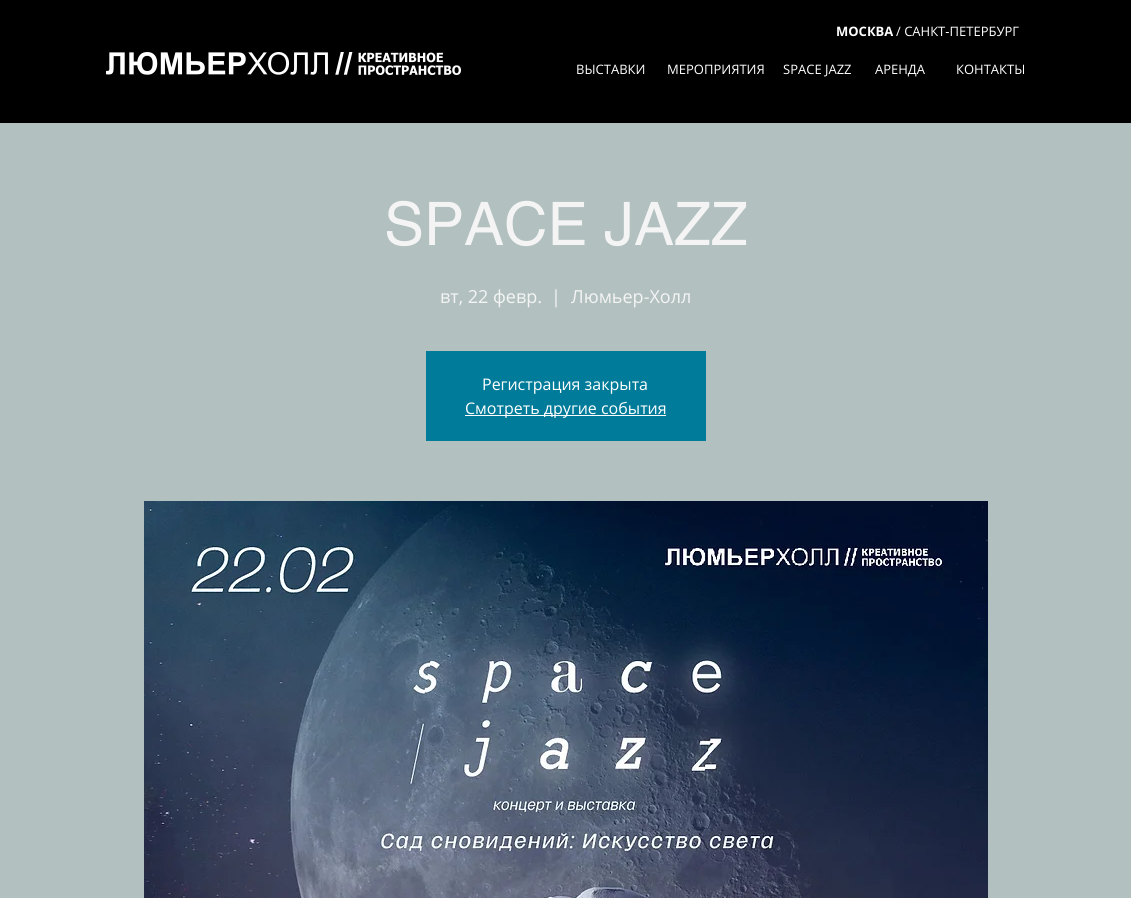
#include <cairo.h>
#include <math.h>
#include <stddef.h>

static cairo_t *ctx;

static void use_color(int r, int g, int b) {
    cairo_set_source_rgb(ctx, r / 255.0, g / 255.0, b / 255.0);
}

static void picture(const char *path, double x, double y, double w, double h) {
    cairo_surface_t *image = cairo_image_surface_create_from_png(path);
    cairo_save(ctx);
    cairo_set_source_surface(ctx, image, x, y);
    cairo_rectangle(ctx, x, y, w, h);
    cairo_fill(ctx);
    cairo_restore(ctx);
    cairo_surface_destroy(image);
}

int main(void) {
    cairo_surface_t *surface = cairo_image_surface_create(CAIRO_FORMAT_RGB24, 1131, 898);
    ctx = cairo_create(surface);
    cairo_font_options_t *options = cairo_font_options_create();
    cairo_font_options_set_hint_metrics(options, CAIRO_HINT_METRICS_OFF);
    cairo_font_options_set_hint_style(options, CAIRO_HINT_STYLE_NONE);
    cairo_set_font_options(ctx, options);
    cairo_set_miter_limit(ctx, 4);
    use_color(179, 192, 192);
    cairo_paint(ctx);
    use_color(0, 0, 0);
    cairo_rectangle(ctx, 0, 0, 1131, 123);
    cairo_fill(ctx);
    cairo_select_font_face(ctx, "Open Sans", CAIRO_FONT_SLANT_NORMAL, CAIRO_FONT_WEIGHT_BOLD);
    cairo_set_font_size(ctx, 13);
    use_color(255, 255, 255);
    cairo_move_to(ctx, 836, 36);
    cairo_show_text(ctx, "МОСКВА");
    cairo_select_font_face(ctx, "Open Sans", CAIRO_FONT_SLANT_NORMAL, CAIRO_FONT_WEIGHT_NORMAL);
    cairo_move_to(ctx, 896, 36);
    cairo_show_text(ctx, "/ САНКТ-ПЕТЕРБУРГ");
    picture("img1.png", 106, 52, 355, 23);
    cairo_move_to(ctx, 576, 74);
    cairo_show_text(ctx, "ВЫСТАВКИ");
    cairo_move_to(ctx, 667, 74);
    cairo_show_text(ctx, "МЕРОПРИЯТИЯ");
    cairo_move_to(ctx, 783, 74);
    cairo_show_text(ctx, "SPACE JAZZ");
    cairo_move_to(ctx, 875, 74);
    cairo_show_text(ctx, "АРЕНДА");
    cairo_move_to(ctx, 956, 74);
    cairo_show_text(ctx, "КОНТАКТЫ");
    cairo_select_font_face(ctx, "helvetica", CAIRO_FONT_SLANT_NORMAL, CAIRO_FONT_WEIGHT_NORMAL);
    cairo_set_font_size(ctx, 60);
    use_color(244, 244, 244);
    cairo_move_to(ctx, 384, 245);
    cairo_show_text(ctx, "SPACE JAZZ");
    cairo_select_font_face(ctx, "Open Sans", CAIRO_FONT_SLANT_NORMAL, CAIRO_FONT_WEIGHT_NORMAL);
    cairo_set_font_size(ctx, 18);
    cairo_move_to(ctx, 440, 303);
    cairo_show_text(ctx, "вт, 22 февр.");
    cairo_move_to(ctx, 551, 303);
    cairo_show_text(ctx, "|");
    cairo_move_to(ctx, 571, 303);
    cairo_show_text(ctx, "Люмьер-Холл");
    use_color(0, 123, 154);
    cairo_rectangle(ctx, 426, 351, 280, 90);
    cairo_fill(ctx);
    cairo_set_font_size(ctx, 16);
    use_color(255, 255, 255);
    cairo_move_to(ctx, 482, 390);
    cairo_show_text(ctx, "Регистрация закрыта");
    cairo_rectangle(ctx, 465, 415, 201, 1);
    cairo_fill(ctx);
    cairo_move_to(ctx, 465, 414);
    cairo_show_text(ctx, "Смотреть другие события");
    picture("img2.png", 144, 501, 844, 397);
    cairo_surface_write_to_png(surface, "result.png");
    cairo_font_options_destroy(options);
    cairo_destroy(ctx);
    cairo_surface_destroy(surface);
    return 0;
}
